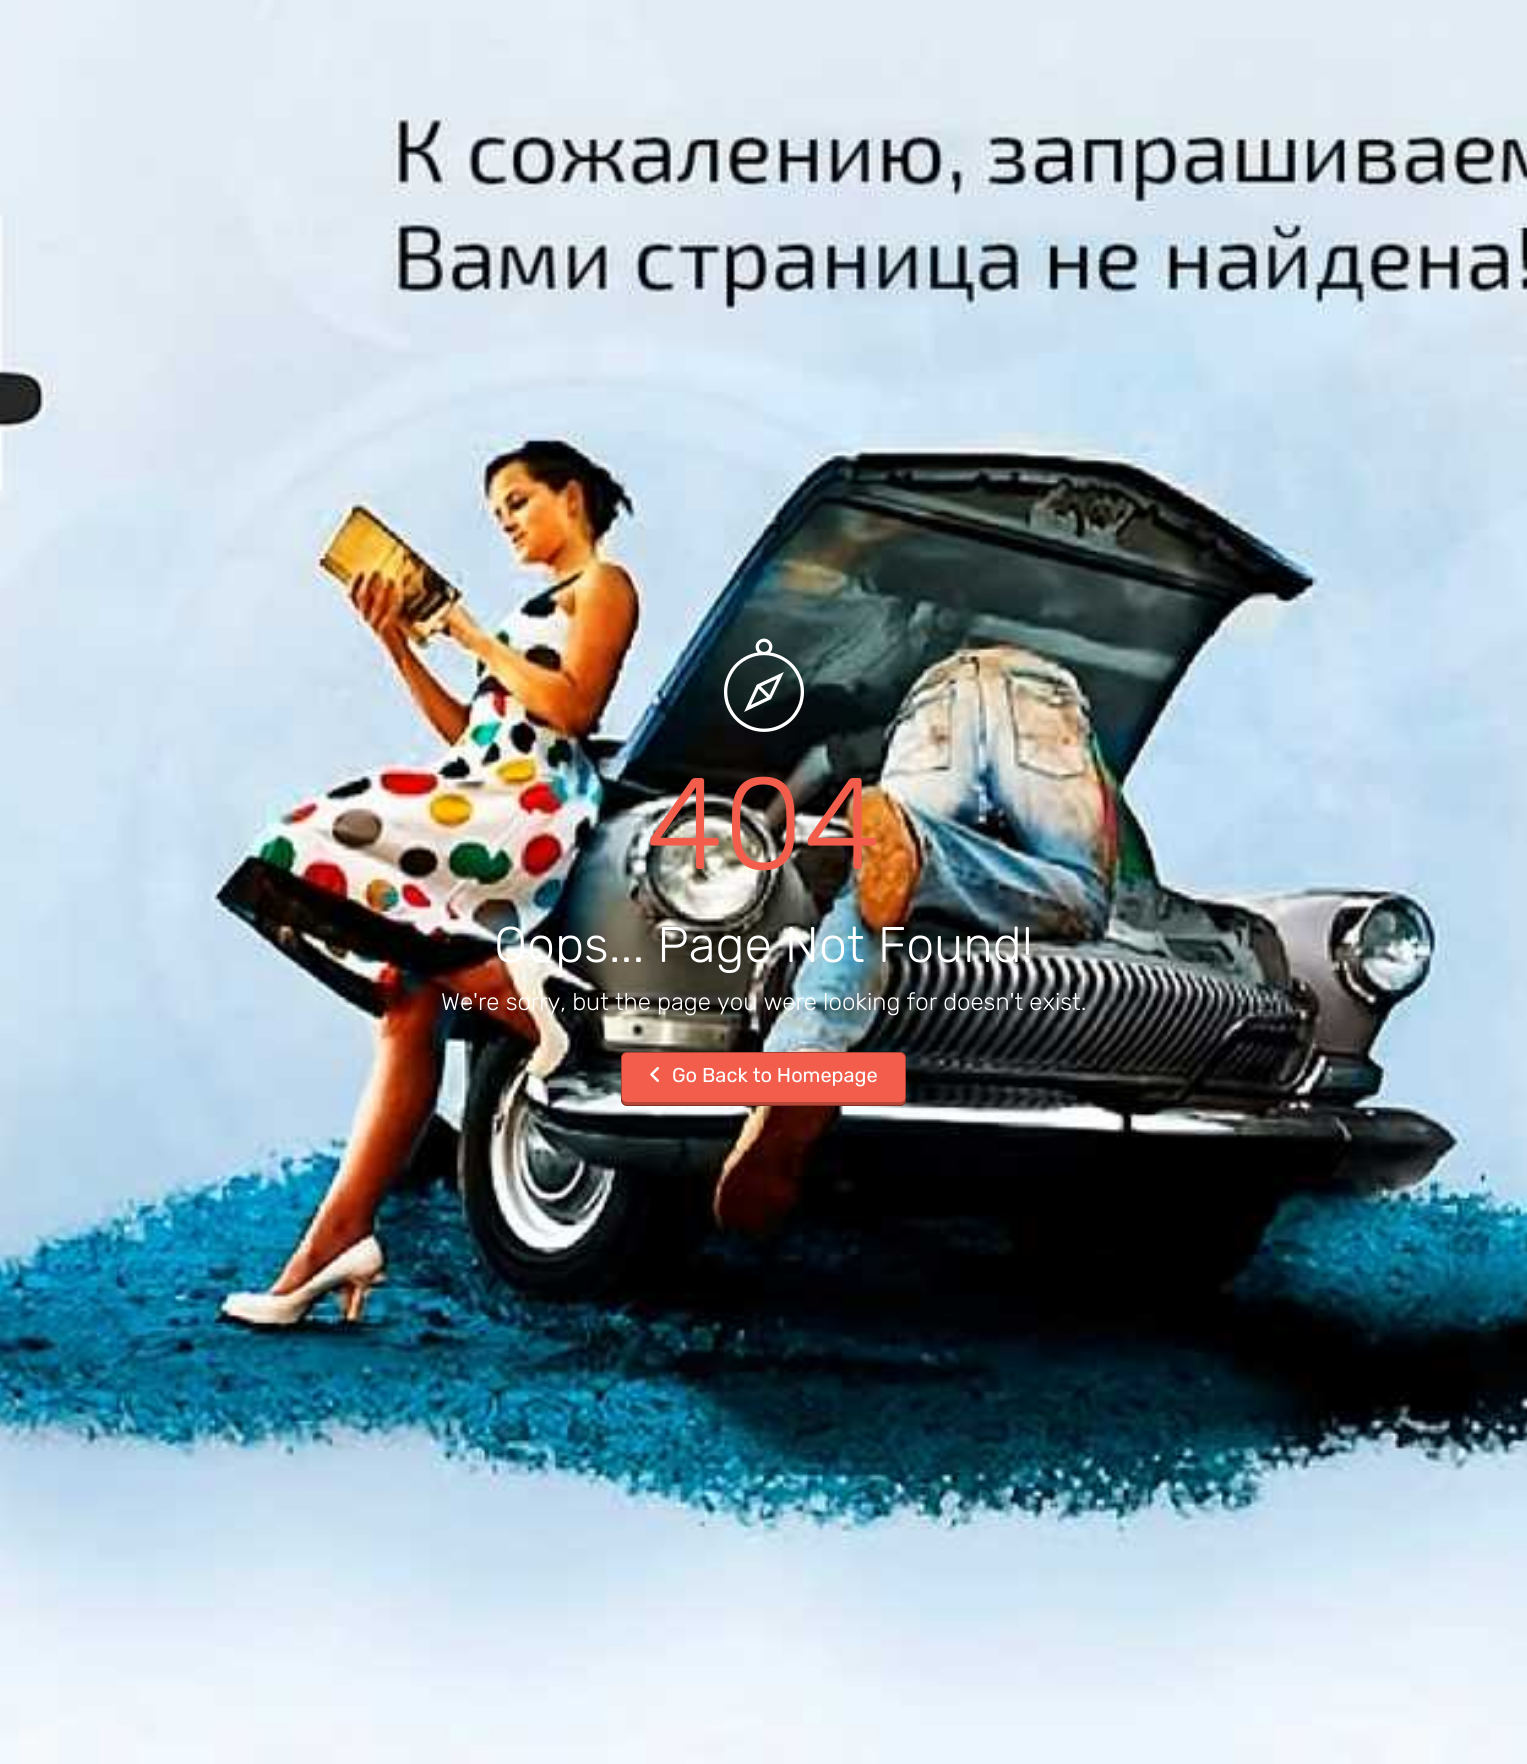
#include <cairo.h>
#include <math.h>
#include <stddef.h>

static cairo_t *ctx;

static void use_color(int r, int g, int b) {
    cairo_set_source_rgb(ctx, r / 255.0, g / 255.0, b / 255.0);
}

static void round_rect(double x, double y, double w, double h, double r) {
    cairo_new_sub_path(ctx);
    cairo_arc(ctx, x + w - r, y + h - r, r, 0, M_PI / 2);
    cairo_arc(ctx, x + r, y + h - r, r, M_PI / 2, M_PI);
    cairo_arc(ctx, x + r, y + r, r, M_PI, 1.5 * M_PI);
    cairo_arc(ctx, x + w - r, y + r, r, 1.5 * M_PI, 2 * M_PI);
    cairo_close_path(ctx);
}

static void picture(const char *path, double x, double y, double w, double h) {
    cairo_surface_t *image = cairo_image_surface_create_from_png(path);
    cairo_save(ctx);
    cairo_set_source_surface(ctx, image, x, y);
    cairo_rectangle(ctx, x, y, w, h);
    cairo_fill(ctx);
    cairo_restore(ctx);
    cairo_surface_destroy(image);
}

int main(void) {
    cairo_surface_t *surface = cairo_image_surface_create(CAIRO_FORMAT_RGB24, 1527, 1764);
    ctx = cairo_create(surface);
    cairo_font_options_t *options = cairo_font_options_create();
    cairo_font_options_set_hint_metrics(options, CAIRO_HINT_METRICS_OFF);
    cairo_font_options_set_hint_style(options, CAIRO_HINT_STYLE_NONE);
    cairo_set_font_options(ctx, options);
    cairo_set_miter_limit(ctx, 4);
    use_color(255, 255, 255);
    cairo_paint(ctx);
    picture("img1.png", 0, 0, 1527, 1764);
    picture("img2.png", 724, 638, 80, 94);
    cairo_select_font_face(ctx, "Rubik Light", CAIRO_FONT_SLANT_NORMAL, CAIRO_FONT_WEIGHT_NORMAL);
    cairo_set_font_size(ctx, 130);
    use_color(243, 93, 75);
    cairo_move_to(ctx, 646, 869);
    cairo_show_text(ctx, "404");
    cairo_set_font_size(ctx, 50);
    use_color(255, 255, 255);
    cairo_move_to(ctx, 494, 962);
    cairo_show_text(ctx, "Oops... Page Not Found!");
    cairo_set_font_size(ctx, 24);
    cairo_move_to(ctx, 441, 1010);
    cairo_show_text(ctx, "We're sorry, but the page you were looking for doesn't exist.");
    use_color(243, 93, 75);
    round_rect(621, 1052, 285, 54, 6);
    cairo_fill(ctx);
    round_rect(621.5, 1052.5, 284, 53, 5.5);
    cairo_set_source_rgba(ctx, 0, 0, 0, 0.3);
    cairo_set_line_width(ctx, 1);
    cairo_stroke(ctx);
    cairo_set_source_rgba(ctx, 0, 0, 0, 0.25);
    cairo_new_path(ctx);
    cairo_move_to(ctx, 621, 1096);
    cairo_line_to(ctx, 621, 1100);
    cairo_curve_to(ctx, 621, 1103, 624, 1106, 627, 1106);
    cairo_line_to(ctx, 900, 1106);
    cairo_curve_to(ctx, 903, 1106, 906, 1103, 906, 1100);
    cairo_line_to(ctx, 906, 1096);
    cairo_curve_to(ctx, 906, 1099, 903, 1102, 900, 1102);
    cairo_line_to(ctx, 627, 1102);
    cairo_curve_to(ctx, 624, 1102, 621, 1099, 621, 1096);
    cairo_close_path(ctx);
    cairo_fill(ctx);
    picture("img3.png", 650, 1067, 9, 15);
    cairo_select_font_face(ctx, "Rubik", CAIRO_FONT_SLANT_NORMAL, CAIRO_FONT_WEIGHT_NORMAL);
    cairo_set_font_size(ctx, 20);
    use_color(255, 255, 255);
    cairo_move_to(ctx, 672, 1082);
    cairo_show_text(ctx, "Go Back to Homepage");
    cairo_surface_write_to_png(surface, "result.png");
    cairo_font_options_destroy(options);
    cairo_destroy(ctx);
    cairo_surface_destroy(surface);
    return 0;
}
